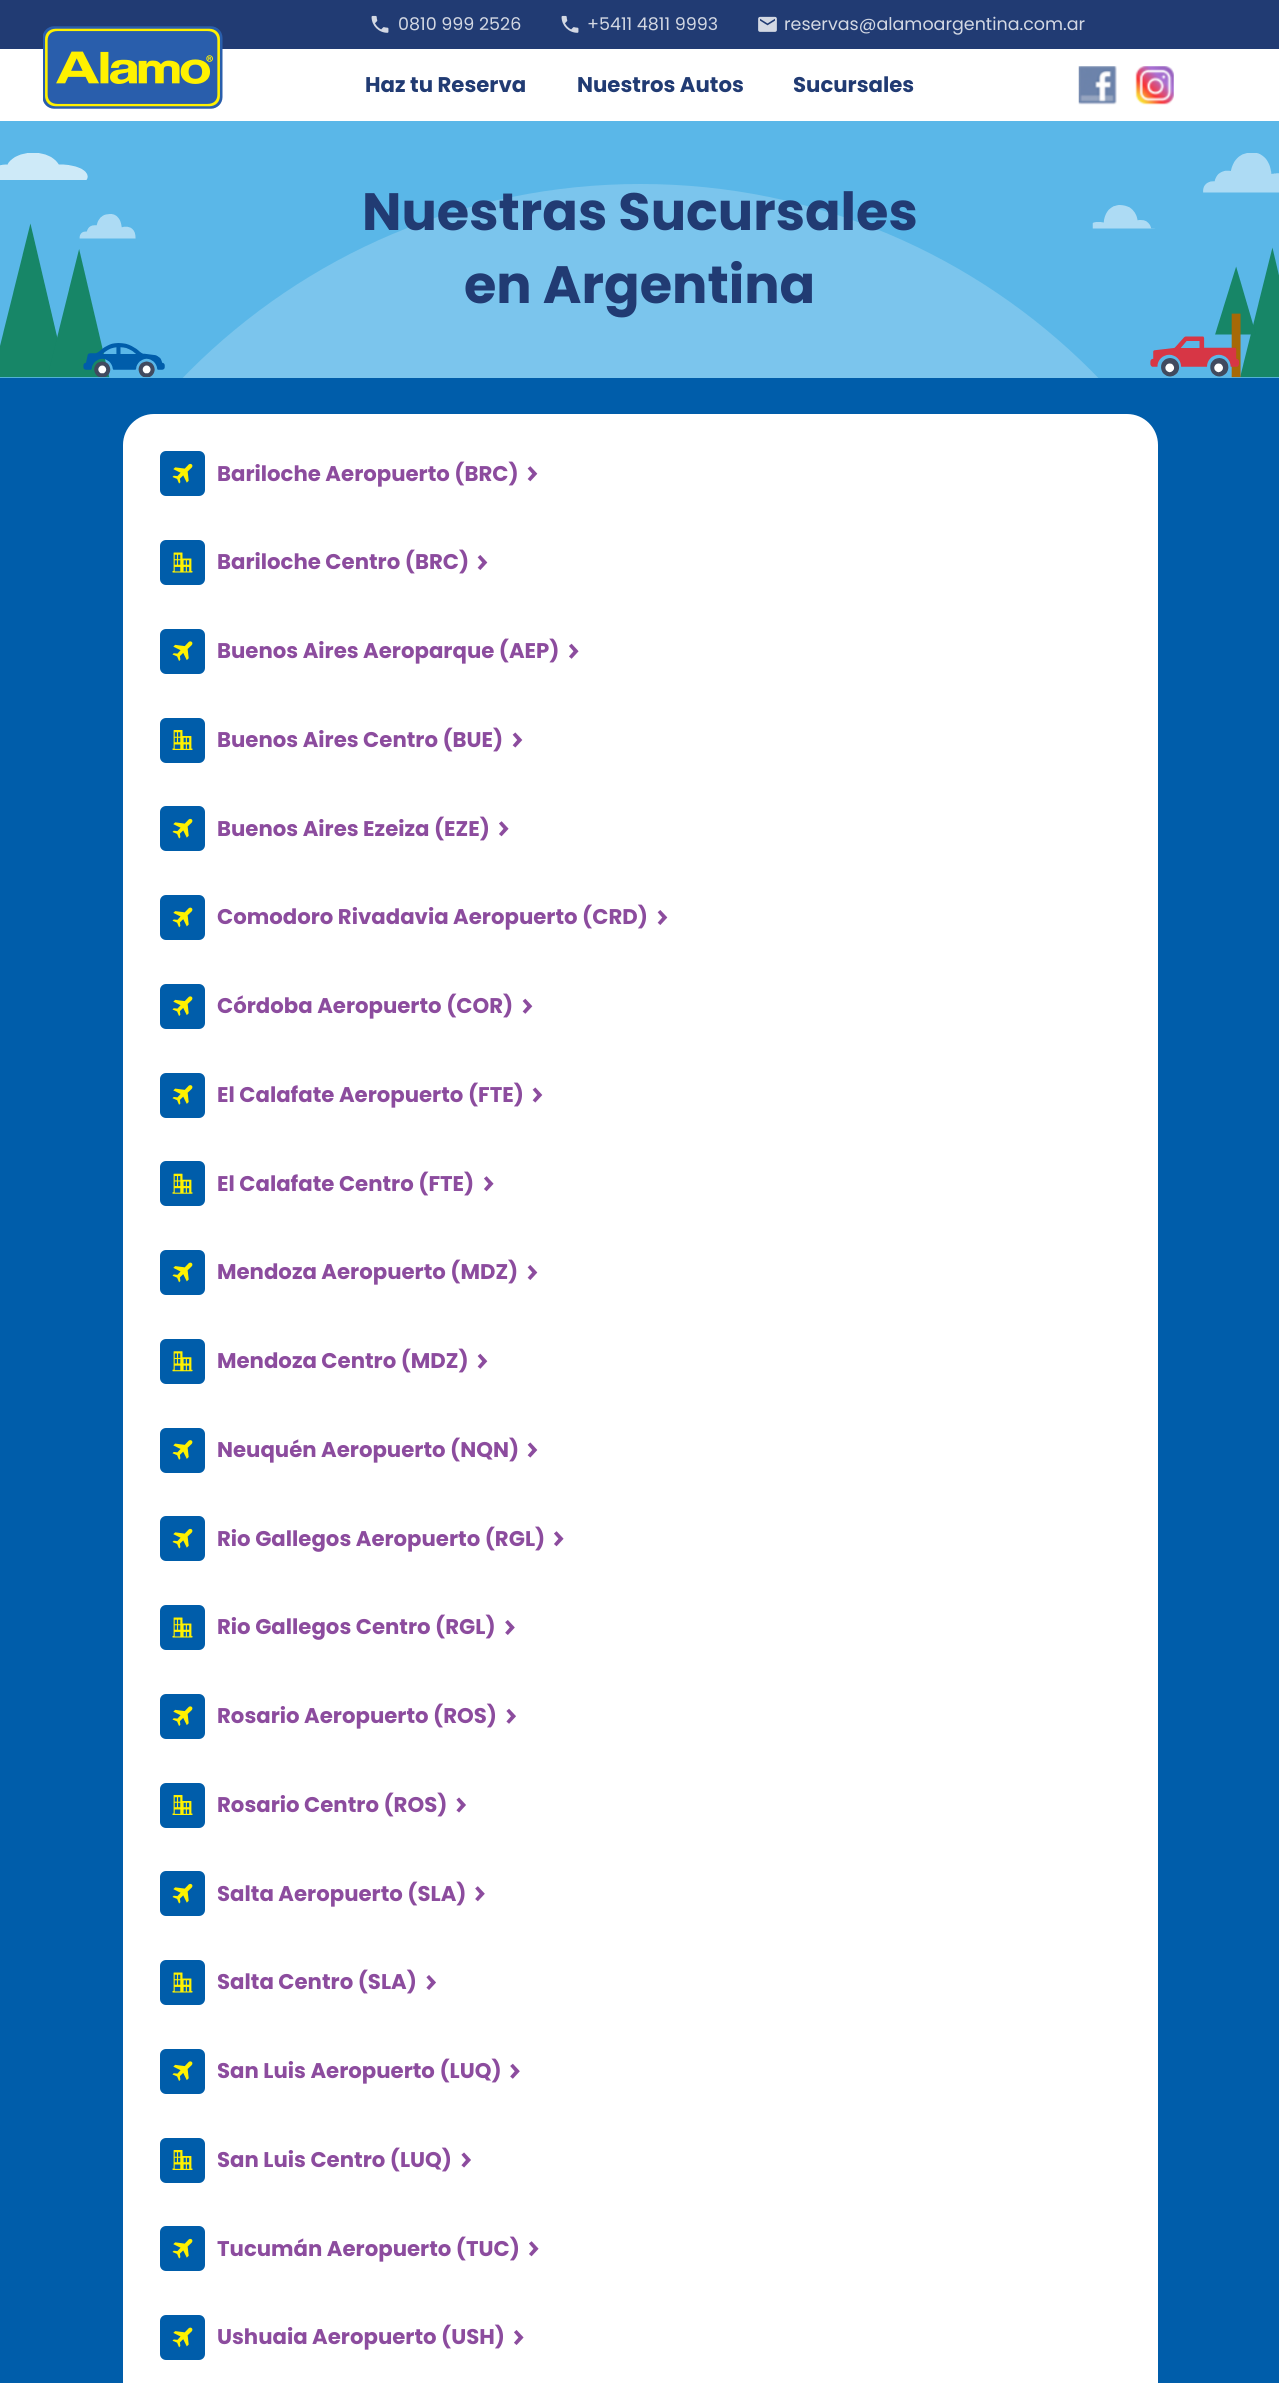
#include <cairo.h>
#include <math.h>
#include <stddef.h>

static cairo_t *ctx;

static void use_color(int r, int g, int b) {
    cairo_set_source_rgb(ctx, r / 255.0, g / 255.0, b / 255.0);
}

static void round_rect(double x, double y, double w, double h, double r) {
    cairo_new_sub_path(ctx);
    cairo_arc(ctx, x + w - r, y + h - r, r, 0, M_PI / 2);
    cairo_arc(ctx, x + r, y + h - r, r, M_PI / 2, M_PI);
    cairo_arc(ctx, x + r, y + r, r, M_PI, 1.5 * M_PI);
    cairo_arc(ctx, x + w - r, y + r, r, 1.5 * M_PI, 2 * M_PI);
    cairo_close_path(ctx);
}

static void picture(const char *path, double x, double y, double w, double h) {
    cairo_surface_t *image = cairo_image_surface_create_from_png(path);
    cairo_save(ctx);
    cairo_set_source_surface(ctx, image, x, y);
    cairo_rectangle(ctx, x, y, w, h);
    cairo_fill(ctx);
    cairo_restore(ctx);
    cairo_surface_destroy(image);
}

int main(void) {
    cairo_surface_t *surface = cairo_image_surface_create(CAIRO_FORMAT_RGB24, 1279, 2383);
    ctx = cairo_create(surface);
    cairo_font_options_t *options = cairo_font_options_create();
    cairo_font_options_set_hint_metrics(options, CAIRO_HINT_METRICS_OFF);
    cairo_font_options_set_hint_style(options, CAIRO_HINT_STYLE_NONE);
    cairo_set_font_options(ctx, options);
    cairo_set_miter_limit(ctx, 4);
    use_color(255, 255, 255);
    cairo_paint(ctx);
    use_color(33, 59, 115);
    cairo_rectangle(ctx, 0, 0, 1279, 49);
    cairo_fill(ctx);
    picture("img1.png", 371, 15, 18, 18);
    cairo_select_font_face(ctx, "Poppins", CAIRO_FONT_SLANT_NORMAL, CAIRO_FONT_WEIGHT_NORMAL);
    cairo_set_font_size(ctx, 17.5);
    use_color(211, 216, 227);
    cairo_move_to(ctx, 398, 30);
    cairo_show_text(ctx, "0810 999 2526");
    picture("img1.png", 561, 15, 18, 18);
    cairo_move_to(ctx, 587, 30);
    cairo_show_text(ctx, "+5411 4811 9993");
    picture("img2.png", 758, 16, 19, 16);
    cairo_move_to(ctx, 784, 30);
    cairo_show_text(ctx, "reservas@alamoargentina.com.ar");
    picture("img3.png", 43, 26, 180, 83);
    cairo_select_font_face(ctx, "Poppins", CAIRO_FONT_SLANT_NORMAL, CAIRO_FONT_WEIGHT_BOLD);
    cairo_set_font_size(ctx, 21.25);
    use_color(33, 59, 115);
    cairo_move_to(ctx, 365, 92);
    cairo_show_text(ctx, "Haz tu Reserva");
    cairo_move_to(ctx, 577, 92);
    cairo_show_text(ctx, "Nuestros Autos");
    cairo_move_to(ctx, 793, 92);
    cairo_show_text(ctx, "Sucursales");
    picture("img4.png", 1078, 66, 39, 39);
    picture("img5.png", 1135, 66, 39, 39);
    use_color(90, 183, 232);
    cairo_rectangle(ctx, 0, 121, 1279, 257);
    cairo_fill(ctx);
    picture("img6.png", 0, 153, 165, 225);
    cairo_set_source_rgba(ctx, 1, 1, 1, 0.2);
    cairo_new_path(ctx);
    cairo_move_to(ctx, 640.5, 184);
    cairo_curve_to(ctx, 992.5, 184, 1278, 469.5, 1278, 821.5);
    cairo_line_to(ctx, 1278, 378);
    cairo_line_to(ctx, 3, 378);
    cairo_line_to(ctx, 3, 821.5);
    cairo_curve_to(ctx, 3, 469.5, 288.5, 184, 640.5, 184);
    cairo_close_path(ctx);
    cairo_fill(ctx);
    cairo_set_font_size(ctx, 52.5);
    use_color(33, 59, 115);
    cairo_move_to(ctx, 362, 230);
    cairo_show_text(ctx, "Nuestras Sucursales");
    cairo_move_to(ctx, 464, 303);
    cairo_show_text(ctx, "en Argentina");
    picture("img7.png", 1092, 153, 187, 225);
    use_color(0, 93, 170);
    cairo_rectangle(ctx, 0, 378, 1279, 2005);
    cairo_fill(ctx);
    use_color(255, 255, 255);
    round_rect(123, 414, 1035, 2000, 31);
    cairo_fill(ctx);
    use_color(0, 93, 170);
    round_rect(160, 451, 45, 45, 6);
    cairo_fill(ctx);
    picture("img8.png", 172, 463, 21, 21);
    cairo_set_font_size(ctx, 21.25);
    use_color(140, 76, 158);
    cairo_move_to(ctx, 217, 481);
    cairo_show_text(ctx, "Bariloche Aeropuerto (BRC)");
    picture("img9.png", 527, 466, 11, 16);
    use_color(0, 93, 170);
    round_rect(160, 540, 45, 45, 6);
    cairo_fill(ctx);
    picture("img10.png", 172, 552, 21, 21);
    use_color(140, 76, 158);
    cairo_move_to(ctx, 217, 569);
    cairo_show_text(ctx, "Bariloche Centro (BRC)");
    picture("img11.png", 477, 555, 11, 15);
    use_color(0, 93, 170);
    round_rect(160, 629, 45, 45, 6);
    cairo_fill(ctx);
    picture("img12.png", 172, 641, 21, 20);
    use_color(140, 76, 158);
    cairo_move_to(ctx, 217, 658);
    cairo_show_text(ctx, "Buenos Aires Aeroparque (AEP)");
    picture("img13.png", 569, 643, 10, 16);
    use_color(0, 93, 170);
    round_rect(160, 718, 45, 45, 6);
    cairo_fill(ctx);
    picture("img14.png", 172, 730, 21, 20);
    use_color(140, 76, 158);
    cairo_move_to(ctx, 217, 747);
    cairo_show_text(ctx, "Buenos Aires Centro (BUE)");
    picture("img15.png", 512, 732, 11, 16);
    use_color(0, 93, 170);
    round_rect(160, 806, 45, 45, 6);
    cairo_fill(ctx);
    picture("img8.png", 172, 818, 21, 21);
    use_color(140, 76, 158);
    cairo_move_to(ctx, 217, 836);
    cairo_show_text(ctx, "Buenos Aires Ezeiza (EZE)");
    picture("img16.png", 499, 821, 10, 16);
    use_color(0, 93, 170);
    round_rect(160, 895, 45, 45, 6);
    cairo_fill(ctx);
    picture("img17.png", 172, 907, 21, 21);
    use_color(140, 76, 158);
    cairo_move_to(ctx, 217, 924);
    cairo_show_text(ctx, "Comodoro Rivadavia Aeropuerto (CRD)");
    picture("img11.png", 657, 910, 11, 15);
    use_color(0, 93, 170);
    round_rect(160, 984, 45, 45, 6);
    cairo_fill(ctx);
    picture("img12.png", 172, 996, 21, 20);
    use_color(140, 76, 158);
    cairo_move_to(ctx, 217, 1013);
    cairo_show_text(ctx, "Córdoba Aeropuerto (COR)");
    picture("img18.png", 522, 998, 11, 16);
    use_color(0, 93, 170);
    round_rect(160, 1073, 45, 45, 6);
    cairo_fill(ctx);
    picture("img19.png", 172, 1085, 21, 20);
    use_color(140, 76, 158);
    cairo_move_to(ctx, 217, 1102);
    cairo_show_text(ctx, "El Calafate Aeropuerto (FTE)");
    picture("img15.png", 532, 1087, 11, 16);
    use_color(0, 93, 170);
    round_rect(160, 1161, 45, 45, 6);
    cairo_fill(ctx);
    picture("img20.png", 172, 1173, 21, 21);
    use_color(140, 76, 158);
    cairo_move_to(ctx, 217, 1191);
    cairo_show_text(ctx, "El Calafate Centro (FTE)");
    picture("img16.png", 484, 1176, 10, 16);
    use_color(0, 93, 170);
    round_rect(160, 1250, 45, 45, 6);
    cairo_fill(ctx);
    picture("img17.png", 172, 1262, 21, 21);
    use_color(140, 76, 158);
    cairo_move_to(ctx, 217, 1279);
    cairo_show_text(ctx, "Mendoza Aeropuerto (MDZ)");
    picture("img11.png", 527, 1265, 11, 15);
    use_color(0, 93, 170);
    round_rect(160, 1339, 45, 45, 6);
    cairo_fill(ctx);
    picture("img21.png", 172, 1351, 21, 21);
    use_color(140, 76, 158);
    cairo_move_to(ctx, 217, 1368);
    cairo_show_text(ctx, "Mendoza Centro (MDZ)");
    picture("img18.png", 477, 1353, 11, 16);
    use_color(0, 93, 170);
    round_rect(160, 1428, 45, 45, 6);
    cairo_fill(ctx);
    picture("img19.png", 172, 1440, 21, 20);
    use_color(140, 76, 158);
    cairo_move_to(ctx, 217, 1457);
    cairo_show_text(ctx, "Neuquén Aeropuerto (NQN)");
    picture("img15.png", 527, 1442, 11, 16);
    use_color(0, 93, 170);
    round_rect(160, 1516, 45, 45, 6);
    cairo_fill(ctx);
    picture("img8.png", 172, 1528, 21, 21);
    use_color(140, 76, 158);
    cairo_move_to(ctx, 217, 1546);
    cairo_show_text(ctx, "Rio Gallegos Aeropuerto (RGL)");
    picture("img16.png", 554, 1531, 10, 16);
    use_color(0, 93, 170);
    round_rect(160, 1605, 45, 45, 6);
    cairo_fill(ctx);
    picture("img10.png", 172, 1617, 21, 21);
    use_color(140, 76, 158);
    cairo_move_to(ctx, 217, 1634);
    cairo_show_text(ctx, "Rio Gallegos Centro (RGL)");
    picture("img22.png", 505, 1620, 10, 15);
    use_color(0, 93, 170);
    round_rect(160, 1694, 45, 45, 6);
    cairo_fill(ctx);
    picture("img12.png", 172, 1706, 21, 20);
    use_color(140, 76, 158);
    cairo_move_to(ctx, 217, 1723);
    cairo_show_text(ctx, "Rosario Aeropuerto (ROS)");
    picture("img23.png", 506, 1708, 10, 16);
    use_color(0, 93, 170);
    round_rect(160, 1783, 45, 45, 6);
    cairo_fill(ctx);
    picture("img14.png", 172, 1795, 21, 20);
    use_color(140, 76, 158);
    cairo_move_to(ctx, 217, 1812);
    cairo_show_text(ctx, "Rosario Centro (ROS)");
    picture("img24.png", 456, 1797, 10, 16);
    use_color(0, 93, 170);
    round_rect(160, 1871, 45, 45, 6);
    cairo_fill(ctx);
    picture("img8.png", 172, 1883, 21, 21);
    use_color(140, 76, 158);
    cairo_move_to(ctx, 217, 1901);
    cairo_show_text(ctx, "Salta Aeropuerto (SLA)");
    picture("img25.png", 475, 1886, 10, 16);
    use_color(0, 93, 170);
    round_rect(160, 1960, 45, 45, 6);
    cairo_fill(ctx);
    picture("img10.png", 172, 1972, 21, 21);
    use_color(140, 76, 158);
    cairo_move_to(ctx, 217, 1989);
    cairo_show_text(ctx, "Salta Centro (SLA)");
    picture("img26.png", 426, 1975, 10, 15);
    use_color(0, 93, 170);
    round_rect(160, 2049, 45, 45, 6);
    cairo_fill(ctx);
    picture("img12.png", 172, 2061, 21, 20);
    use_color(140, 76, 158);
    cairo_move_to(ctx, 217, 2078);
    cairo_show_text(ctx, "San Luis Aeropuerto (LUQ)");
    picture("img27.png", 510, 2063, 10, 16);
    use_color(0, 93, 170);
    round_rect(160, 2138, 45, 45, 6);
    cairo_fill(ctx);
    picture("img14.png", 172, 2150, 21, 20);
    use_color(140, 76, 158);
    cairo_move_to(ctx, 217, 2167);
    cairo_show_text(ctx, "San Luis Centro (LUQ)");
    picture("img24.png", 461, 2152, 10, 16);
    use_color(0, 93, 170);
    round_rect(160, 2226, 45, 45, 6);
    cairo_fill(ctx);
    picture("img8.png", 172, 2238, 21, 21);
    use_color(140, 76, 158);
    cairo_move_to(ctx, 217, 2256);
    cairo_show_text(ctx, "Tucumán Aeropuerto (TUC)");
    picture("img16.png", 529, 2241, 10, 16);
    use_color(0, 93, 170);
    round_rect(160, 2315, 45, 45, 6);
    cairo_fill(ctx);
    picture("img17.png", 172, 2327, 21, 21);
    use_color(140, 76, 158);
    cairo_move_to(ctx, 217, 2344);
    cairo_show_text(ctx, "Ushuaia Aeropuerto (USH)");
    picture("img28.png", 514, 2330, 10, 15);
    cairo_surface_write_to_png(surface, "result.png");
    cairo_font_options_destroy(options);
    cairo_destroy(ctx);
    cairo_surface_destroy(surface);
    return 0;
}
